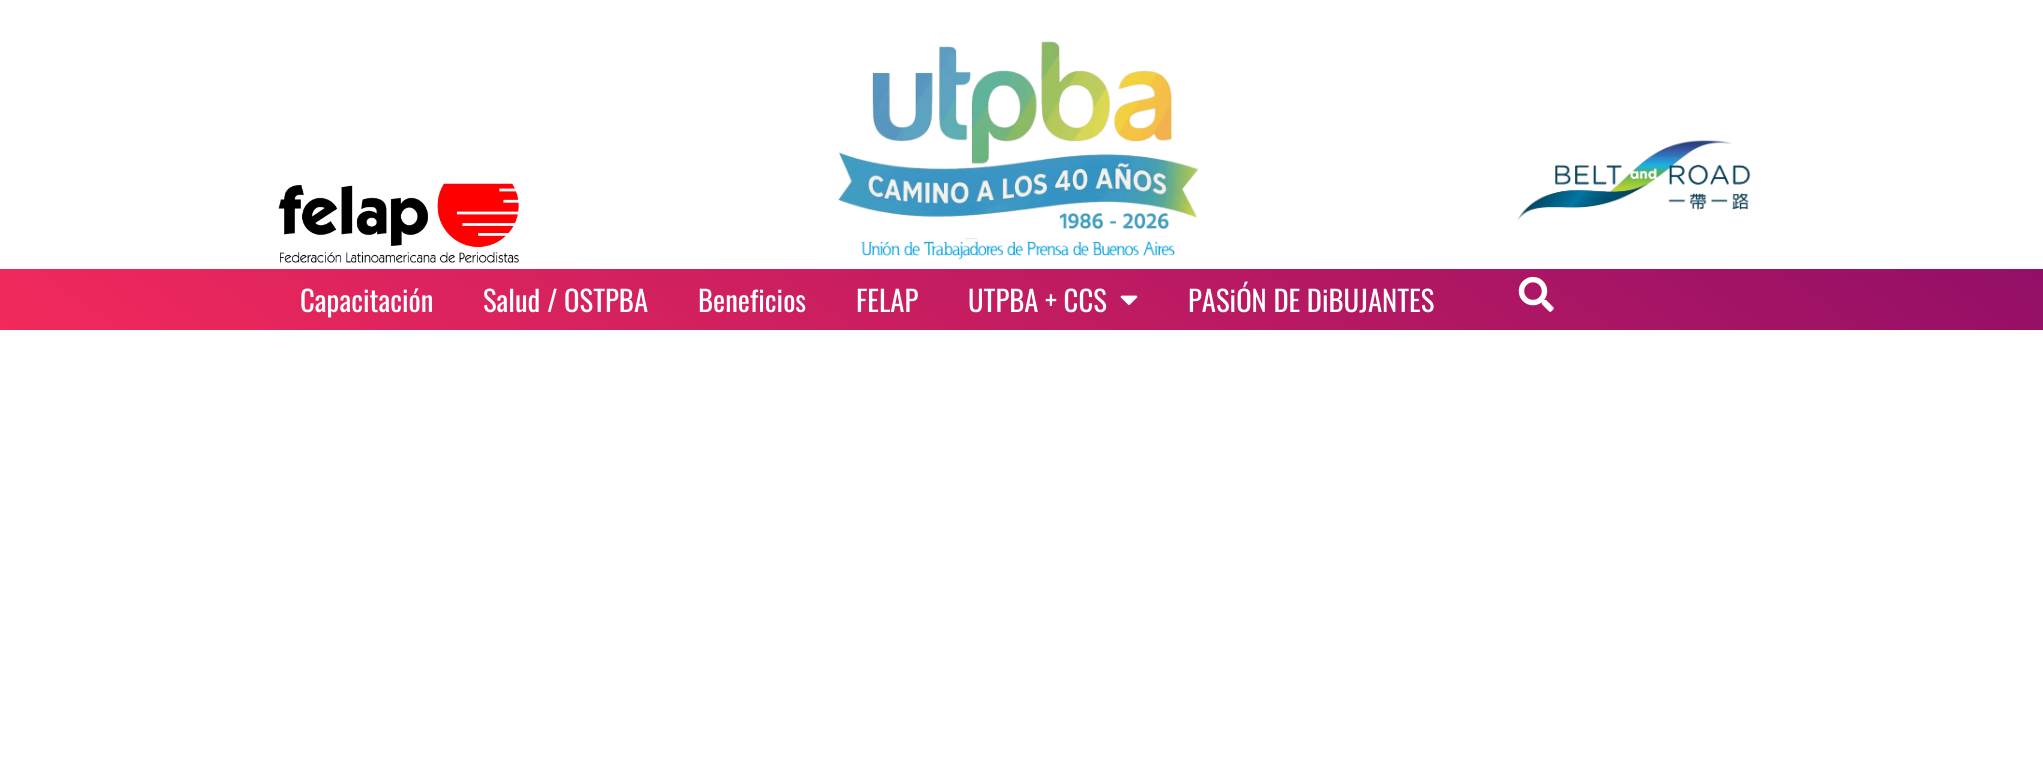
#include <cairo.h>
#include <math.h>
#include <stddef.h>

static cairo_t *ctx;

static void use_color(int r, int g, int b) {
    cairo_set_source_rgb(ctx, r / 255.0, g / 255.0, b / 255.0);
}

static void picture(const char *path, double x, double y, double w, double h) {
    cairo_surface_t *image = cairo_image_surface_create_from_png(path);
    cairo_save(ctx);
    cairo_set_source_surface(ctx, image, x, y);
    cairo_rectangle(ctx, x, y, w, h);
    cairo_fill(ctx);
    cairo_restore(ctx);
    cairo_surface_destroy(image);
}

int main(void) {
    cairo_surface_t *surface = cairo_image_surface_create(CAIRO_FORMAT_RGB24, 2043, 759);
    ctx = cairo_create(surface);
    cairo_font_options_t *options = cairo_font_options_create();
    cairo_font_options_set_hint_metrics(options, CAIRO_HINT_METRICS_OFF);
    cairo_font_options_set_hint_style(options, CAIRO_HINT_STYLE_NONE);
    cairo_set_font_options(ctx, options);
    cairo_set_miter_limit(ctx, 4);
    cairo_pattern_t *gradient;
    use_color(255, 255, 255);
    cairo_paint(ctx);
    picture("img1.png", 278, 183, 241, 80);
    picture("img2.png", 838, 41, 361, 219);
    picture("img3.png", 1517, 140, 234, 80);
    gradient = cairo_pattern_create_linear(1372, -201, 671, 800);
    cairo_pattern_add_color_stop_rgba(gradient, 0, 0.576, 0.059, 0.404, 1);
    cairo_pattern_add_color_stop_rgba(gradient, 1, 0.949, 0.161, 0.357, 1);
    cairo_set_source(ctx, gradient);
    cairo_pattern_destroy(gradient);
    cairo_rectangle(ctx, 0, 269, 2043, 61);
    cairo_fill(ctx);
    cairo_select_font_face(ctx, "Oswald", CAIRO_FONT_SLANT_NORMAL, CAIRO_FONT_WEIGHT_NORMAL);
    cairo_set_font_size(ctx, 28.75);
    use_color(255, 255, 255);
    cairo_move_to(ctx, 300, 312);
    cairo_show_text(ctx, "Capacitación");
    cairo_move_to(ctx, 483, 312);
    cairo_show_text(ctx, "Salud / OSTPBA");
    cairo_move_to(ctx, 698, 312);
    cairo_show_text(ctx, "Beneficios");
    cairo_move_to(ctx, 856, 312);
    cairo_show_text(ctx, "FELAP");
    cairo_move_to(ctx, 968, 312);
    cairo_show_text(ctx, "UTPBA + CCS");
    picture("img4.png", 1120, 295, 18, 11);
    cairo_move_to(ctx, 1188, 312);
    cairo_show_text(ctx, "PASiÓN DE DiBUJANTES");
    picture("img5.png", 1518, 276, 36, 36);
    cairo_surface_write_to_png(surface, "result.png");
    cairo_font_options_destroy(options);
    cairo_destroy(ctx);
    cairo_surface_destroy(surface);
    return 0;
}
